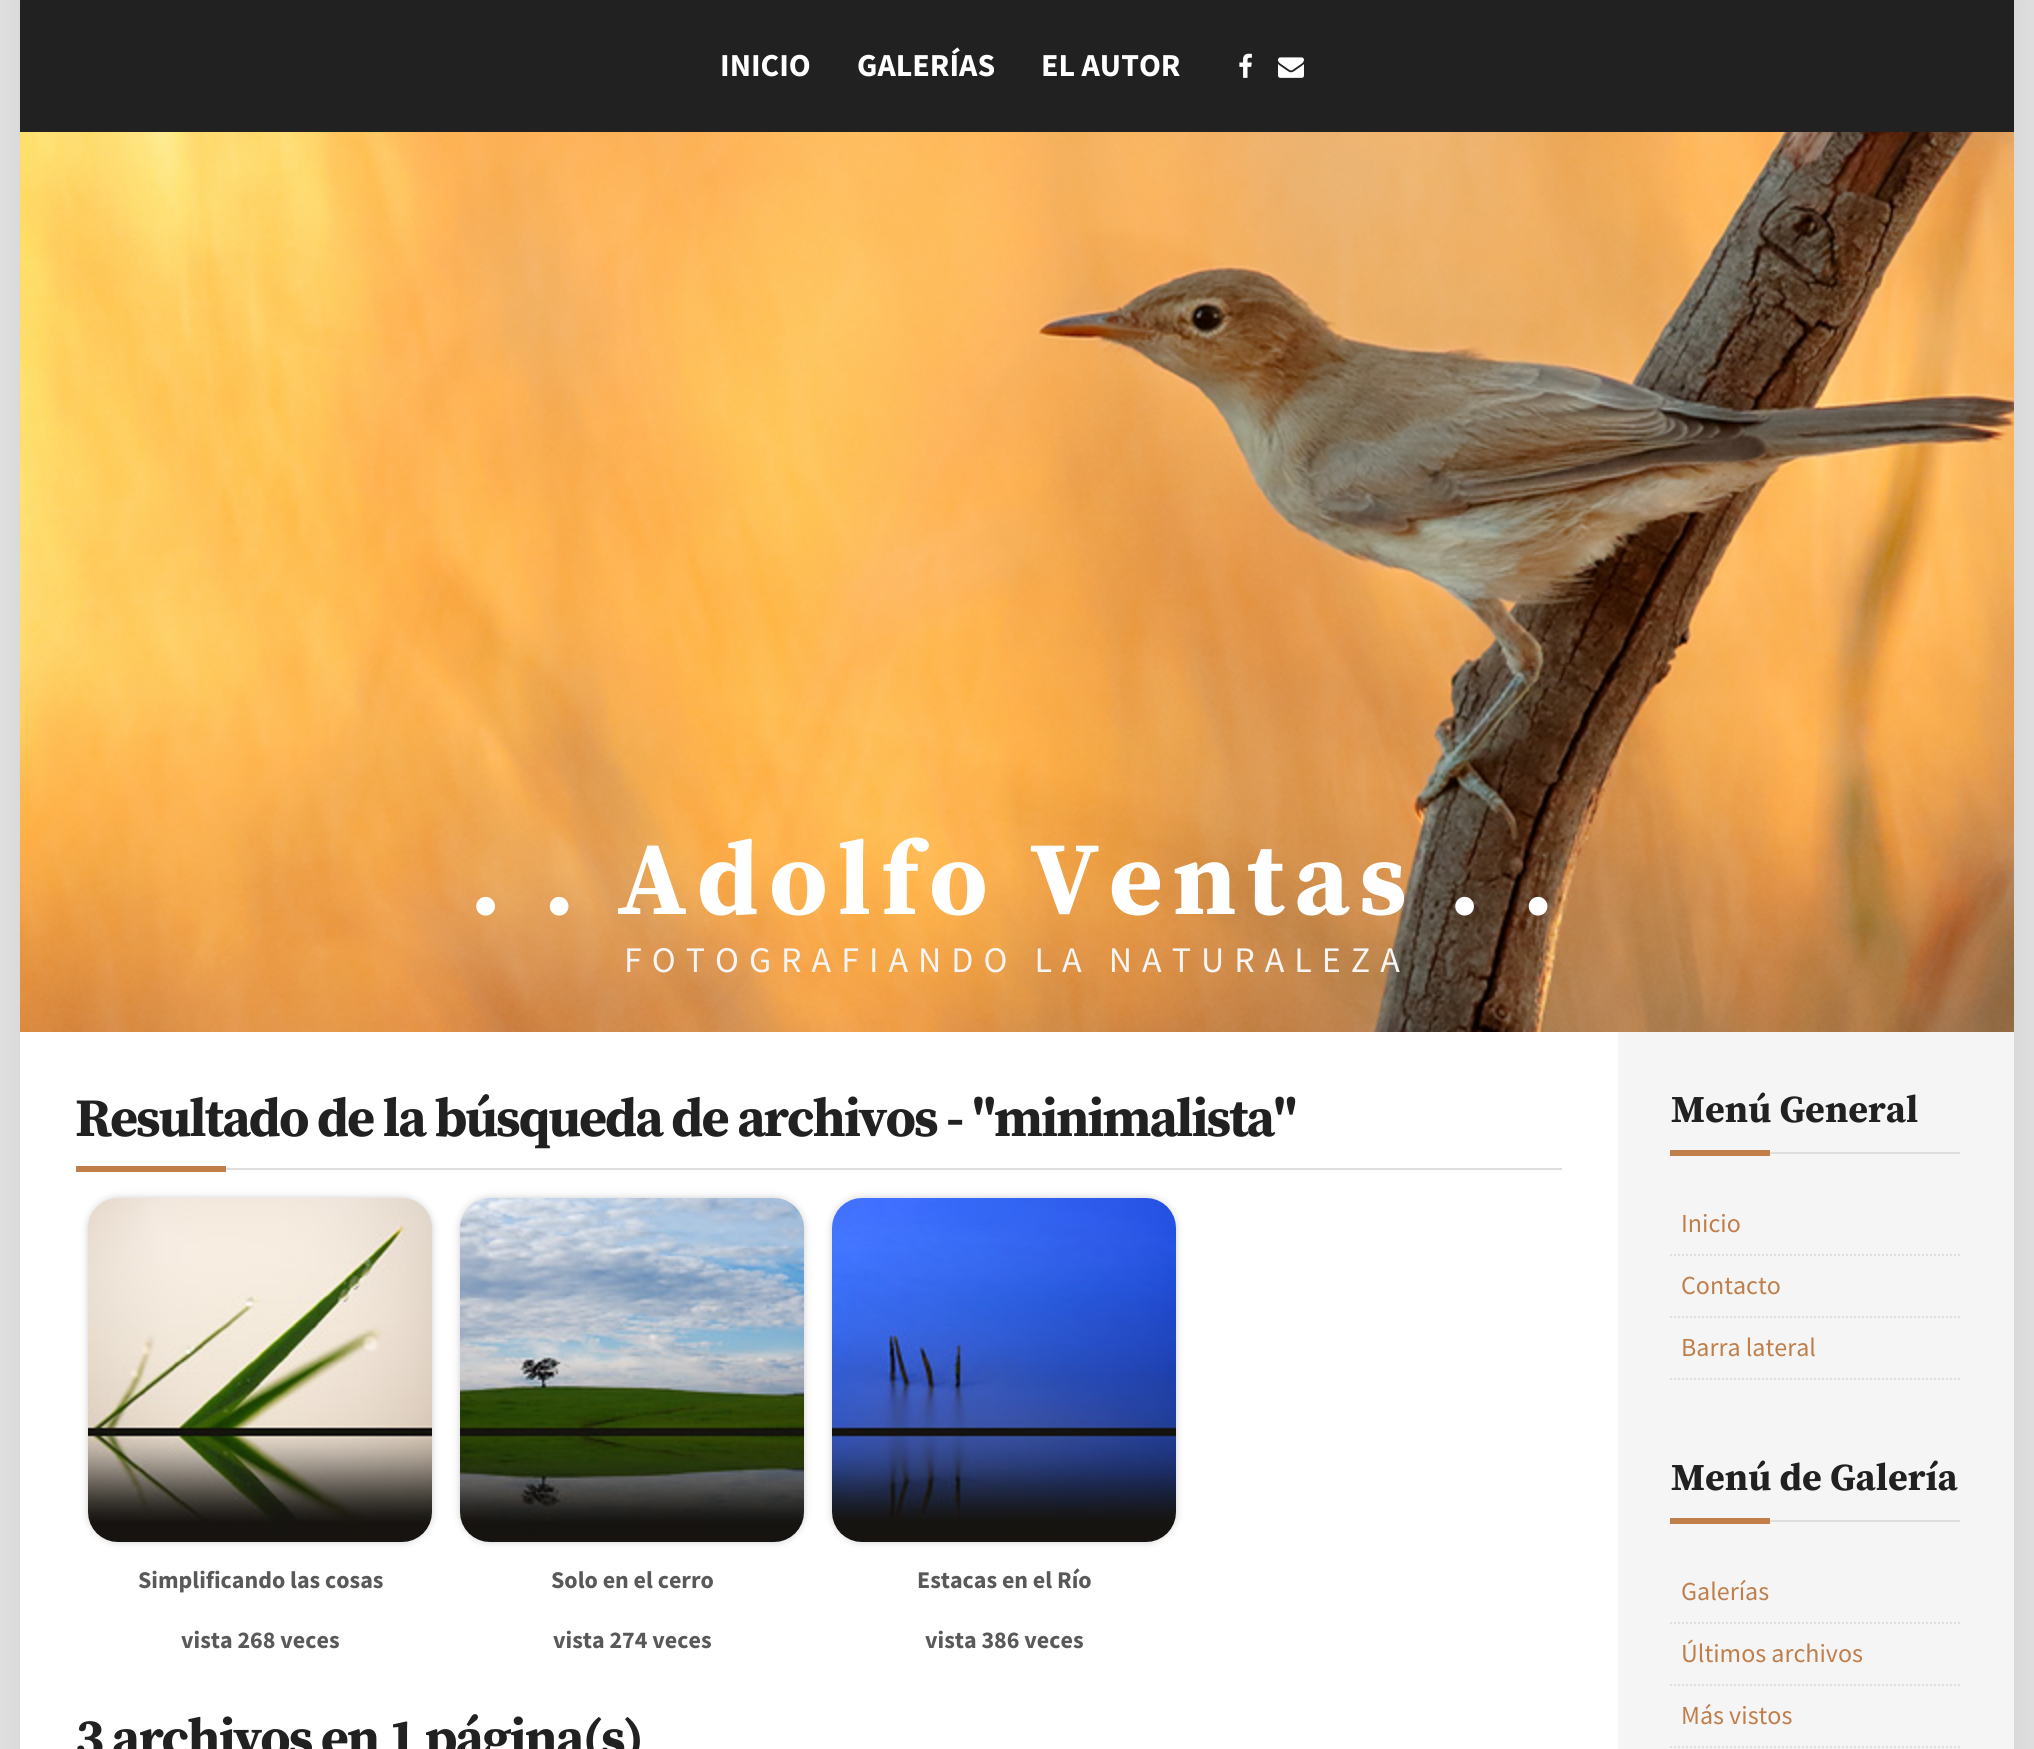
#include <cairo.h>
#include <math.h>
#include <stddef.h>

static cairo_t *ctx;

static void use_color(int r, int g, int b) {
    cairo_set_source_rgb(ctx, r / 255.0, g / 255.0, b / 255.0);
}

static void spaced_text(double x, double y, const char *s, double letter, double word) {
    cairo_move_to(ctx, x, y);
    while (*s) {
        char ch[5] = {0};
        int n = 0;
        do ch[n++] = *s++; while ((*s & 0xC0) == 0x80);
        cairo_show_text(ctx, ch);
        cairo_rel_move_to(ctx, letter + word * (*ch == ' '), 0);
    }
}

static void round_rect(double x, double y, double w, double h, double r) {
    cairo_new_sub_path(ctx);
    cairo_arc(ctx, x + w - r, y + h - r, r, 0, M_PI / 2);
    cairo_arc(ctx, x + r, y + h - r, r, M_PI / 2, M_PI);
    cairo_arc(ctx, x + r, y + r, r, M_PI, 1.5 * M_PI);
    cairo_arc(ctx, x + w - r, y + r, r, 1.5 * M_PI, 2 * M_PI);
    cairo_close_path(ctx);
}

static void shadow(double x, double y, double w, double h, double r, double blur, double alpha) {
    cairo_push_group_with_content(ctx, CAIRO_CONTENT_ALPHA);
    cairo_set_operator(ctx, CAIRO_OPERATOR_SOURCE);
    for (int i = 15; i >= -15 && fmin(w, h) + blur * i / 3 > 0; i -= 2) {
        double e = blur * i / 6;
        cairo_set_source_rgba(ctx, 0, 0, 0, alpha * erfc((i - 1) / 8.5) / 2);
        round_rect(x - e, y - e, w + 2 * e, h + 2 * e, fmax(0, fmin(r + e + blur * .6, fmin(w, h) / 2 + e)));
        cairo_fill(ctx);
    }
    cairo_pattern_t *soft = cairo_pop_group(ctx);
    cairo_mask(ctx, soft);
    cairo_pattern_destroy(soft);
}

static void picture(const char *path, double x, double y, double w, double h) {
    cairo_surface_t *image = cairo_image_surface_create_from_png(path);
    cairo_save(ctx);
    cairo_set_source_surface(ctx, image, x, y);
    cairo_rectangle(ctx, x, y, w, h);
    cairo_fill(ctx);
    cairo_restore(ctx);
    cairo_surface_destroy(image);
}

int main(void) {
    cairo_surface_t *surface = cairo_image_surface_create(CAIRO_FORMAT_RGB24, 2034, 1749);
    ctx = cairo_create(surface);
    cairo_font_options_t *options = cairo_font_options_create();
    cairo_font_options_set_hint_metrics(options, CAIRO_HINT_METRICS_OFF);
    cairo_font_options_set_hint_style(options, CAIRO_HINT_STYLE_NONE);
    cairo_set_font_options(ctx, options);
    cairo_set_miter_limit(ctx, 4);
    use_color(222, 222, 222);
    cairo_paint(ctx);
    use_color(0, 0, 0);
    shadow(20, 0, 1994, 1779, 0, 10, 0.05);
    use_color(33, 33, 33);
    cairo_rectangle(ctx, 20, 0, 1994, 132);
    cairo_fill(ctx);
    cairo_select_font_face(ctx, "Source Sans Pro", CAIRO_FONT_SLANT_NORMAL, CAIRO_FONT_WEIGHT_BOLD);
    cairo_set_font_size(ctx, 32);
    use_color(255, 255, 255);
    cairo_move_to(ctx, 720, 76);
    cairo_show_text(ctx, "INICIO");
    cairo_move_to(ctx, 857, 76);
    cairo_show_text(ctx, "GALERÍAS");
    cairo_move_to(ctx, 1041, 76);
    cairo_show_text(ctx, "EL AUTOR");
    picture("img1.png", 1239, 53, 13, 25);
    picture("img2.png", 1278, 57, 26, 21);
    picture("img3.png", 20, 132, 1994, 900);
    cairo_select_font_face(ctx, "Source Serif Pro", CAIRO_FONT_SLANT_NORMAL, CAIRO_FONT_WEIGHT_BOLD);
    cairo_set_font_size(ctx, 104);
    spaced_text(470, 914, ". . Adolfo Ventas . .", 10, 0);
    cairo_select_font_face(ctx, "Source Sans Pro", CAIRO_FONT_SLANT_NORMAL, CAIRO_FONT_WEIGHT_NORMAL);
    cairo_set_font_size(ctx, 36);
    use_color(245, 245, 245);
    spaced_text(624, 972, "FOTOGRAFIANDO LA NATURALEZA", 10, 0);
    cairo_rectangle(ctx, 1618, 1032, 396, 717);
    cairo_fill(ctx);
    use_color(255, 255, 255);
    cairo_rectangle(ctx, 20, 1032, 1598, 717);
    cairo_fill(ctx);
    use_color(222, 222, 222);
    cairo_rectangle(ctx, 226, 1168, 1336, 2);
    cairo_fill(ctx);
    cairo_select_font_face(ctx, "Source Serif Pro", CAIRO_FONT_SLANT_NORMAL, CAIRO_FONT_WEIGHT_BOLD);
    cairo_set_font_size(ctx, 54);
    use_color(33, 33, 33);
    spaced_text(75, 1136, "Resultado de la búsqueda de archivos - \"minimalista\"", -2, 0);
    use_color(192, 126, 75);
    cairo_rectangle(ctx, 76, 1166, 150, 6);
    cairo_fill(ctx);
    use_color(0, 0, 0);
    shadow(88, 1198, 344, 344, 30, 4, 0.2);
    picture("img4.png", 88, 1198, 344, 344);
    cairo_select_font_face(ctx, "Source Sans Pro", CAIRO_FONT_SLANT_NORMAL, CAIRO_FONT_WEIGHT_BOLD);
    cairo_set_font_size(ctx, 24);
    use_color(89, 89, 89);
    cairo_move_to(ctx, 138, 1588);
    cairo_show_text(ctx, "Simplificando las cosas");
    cairo_move_to(ctx, 181, 1648);
    cairo_show_text(ctx, "vista 268 veces");
    use_color(0, 0, 0);
    shadow(460, 1198, 344, 344, 30, 4, 0.2);
    picture("img5.png", 460, 1198, 344, 344);
    use_color(89, 89, 89);
    cairo_move_to(ctx, 551, 1588);
    cairo_show_text(ctx, "Solo en el cerro");
    cairo_move_to(ctx, 553, 1648);
    cairo_show_text(ctx, "vista 274 veces");
    use_color(0, 0, 0);
    shadow(832, 1198, 344, 344, 30, 4, 0.2);
    picture("img6.png", 832, 1198, 344, 344);
    use_color(89, 89, 89);
    cairo_move_to(ctx, 917, 1588);
    cairo_show_text(ctx, "Estacas en el Río");
    cairo_move_to(ctx, 925, 1648);
    cairo_show_text(ctx, "vista 386 veces");
    cairo_select_font_face(ctx, "Source Serif Pro", CAIRO_FONT_SLANT_NORMAL, CAIRO_FONT_WEIGHT_BOLD);
    cairo_set_font_size(ctx, 54);
    use_color(33, 33, 33);
    spaced_text(75, 1756, "3 archivos en 1 página(s)", -2, 0);
    use_color(222, 222, 222);
    cairo_rectangle(ctx, 1770, 1152, 190, 2);
    cairo_fill(ctx);
    cairo_set_font_size(ctx, 38);
    use_color(33, 33, 33);
    cairo_move_to(ctx, 1671, 1122);
    cairo_show_text(ctx, "Menú General");
    use_color(192, 126, 75);
    cairo_rectangle(ctx, 1670, 1150, 100, 6);
    cairo_fill(ctx);
    cairo_new_path(ctx);
    cairo_move_to(ctx, 1670, 1255);
    cairo_line_to(ctx, 1960, 1255);
    use_color(222, 222, 222);
    cairo_set_dash(ctx, (double[]){2, 2}, 2, 0);
    cairo_stroke(ctx);
    cairo_select_font_face(ctx, "Source Sans Pro", CAIRO_FONT_SLANT_NORMAL, CAIRO_FONT_WEIGHT_NORMAL);
    cairo_set_font_size(ctx, 26);
    use_color(192, 126, 75);
    cairo_move_to(ctx, 1681, 1232);
    cairo_show_text(ctx, "Inicio");
    cairo_new_path(ctx);
    cairo_move_to(ctx, 1670, 1317);
    cairo_line_to(ctx, 1960, 1317);
    use_color(222, 222, 222);
    cairo_stroke(ctx);
    use_color(192, 126, 75);
    cairo_move_to(ctx, 1681, 1294);
    cairo_show_text(ctx, "Contacto");
    cairo_new_path(ctx);
    cairo_move_to(ctx, 1670, 1379);
    cairo_line_to(ctx, 1960, 1379);
    use_color(222, 222, 222);
    cairo_stroke(ctx);
    use_color(192, 126, 75);
    cairo_move_to(ctx, 1681, 1356);
    cairo_show_text(ctx, "Barra lateral");
    use_color(222, 222, 222);
    cairo_rectangle(ctx, 1770, 1520, 190, 2);
    cairo_fill(ctx);
    cairo_select_font_face(ctx, "Source Serif Pro", CAIRO_FONT_SLANT_NORMAL, CAIRO_FONT_WEIGHT_BOLD);
    cairo_set_font_size(ctx, 38);
    use_color(33, 33, 33);
    cairo_move_to(ctx, 1671, 1490);
    cairo_show_text(ctx, "Menú de Galería");
    use_color(192, 126, 75);
    cairo_rectangle(ctx, 1670, 1518, 100, 6);
    cairo_fill(ctx);
    cairo_new_path(ctx);
    cairo_move_to(ctx, 1670, 1623);
    cairo_line_to(ctx, 1960, 1623);
    use_color(222, 222, 222);
    cairo_stroke(ctx);
    cairo_select_font_face(ctx, "Source Sans Pro", CAIRO_FONT_SLANT_NORMAL, CAIRO_FONT_WEIGHT_NORMAL);
    cairo_set_font_size(ctx, 26);
    use_color(192, 126, 75);
    cairo_move_to(ctx, 1681, 1600);
    cairo_show_text(ctx, "Galerías");
    cairo_new_path(ctx);
    cairo_move_to(ctx, 1670, 1685);
    cairo_line_to(ctx, 1960, 1685);
    use_color(222, 222, 222);
    cairo_stroke(ctx);
    use_color(192, 126, 75);
    cairo_move_to(ctx, 1681, 1662);
    cairo_show_text(ctx, "Últimos archivos");
    cairo_new_path(ctx);
    cairo_move_to(ctx, 1670, 1747);
    cairo_line_to(ctx, 1960, 1747);
    use_color(222, 222, 222);
    cairo_stroke(ctx);
    use_color(192, 126, 75);
    cairo_move_to(ctx, 1681, 1724);
    cairo_show_text(ctx, "Más vistos");
    cairo_surface_write_to_png(surface, "result.png");
    cairo_font_options_destroy(options);
    cairo_destroy(ctx);
    cairo_surface_destroy(surface);
    return 0;
}
